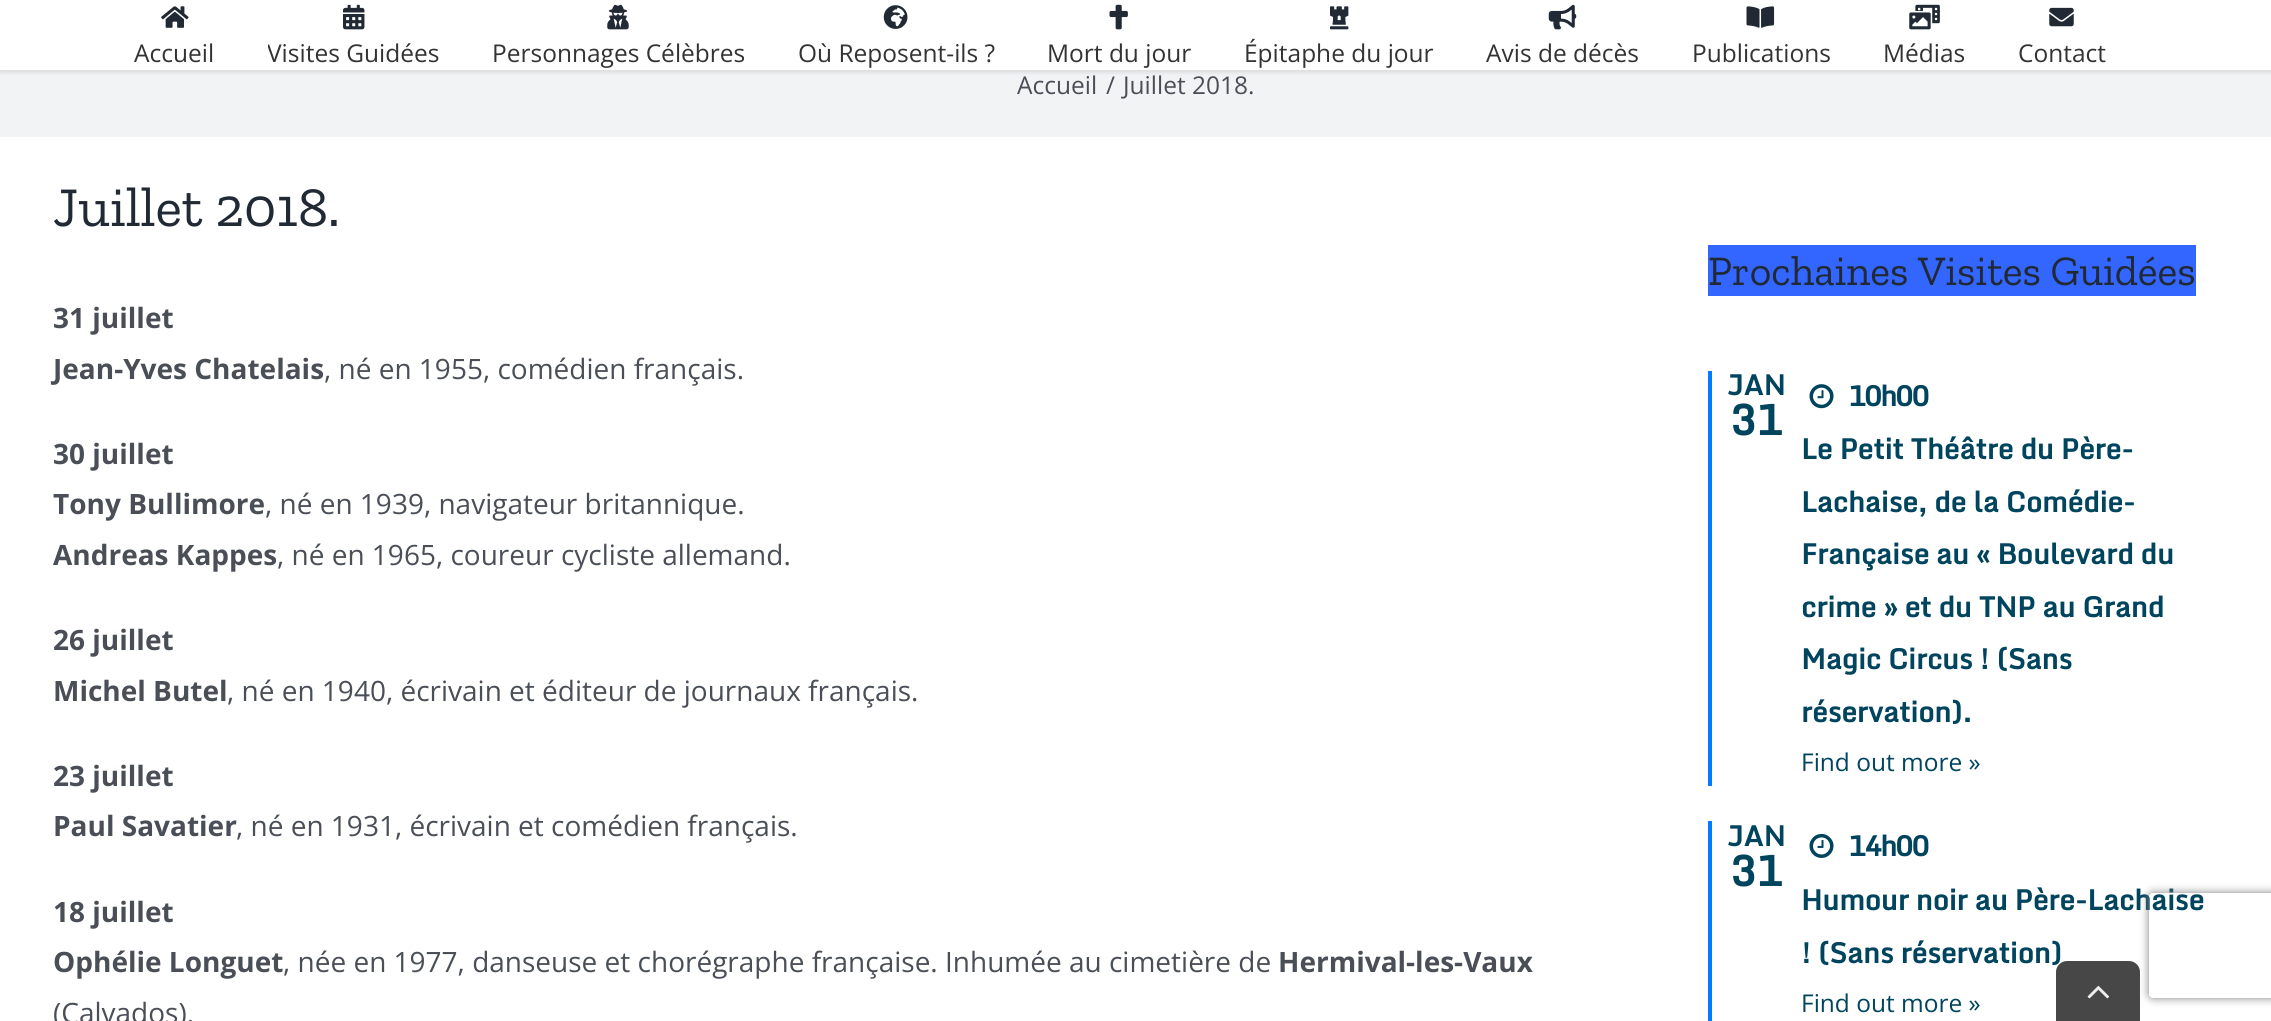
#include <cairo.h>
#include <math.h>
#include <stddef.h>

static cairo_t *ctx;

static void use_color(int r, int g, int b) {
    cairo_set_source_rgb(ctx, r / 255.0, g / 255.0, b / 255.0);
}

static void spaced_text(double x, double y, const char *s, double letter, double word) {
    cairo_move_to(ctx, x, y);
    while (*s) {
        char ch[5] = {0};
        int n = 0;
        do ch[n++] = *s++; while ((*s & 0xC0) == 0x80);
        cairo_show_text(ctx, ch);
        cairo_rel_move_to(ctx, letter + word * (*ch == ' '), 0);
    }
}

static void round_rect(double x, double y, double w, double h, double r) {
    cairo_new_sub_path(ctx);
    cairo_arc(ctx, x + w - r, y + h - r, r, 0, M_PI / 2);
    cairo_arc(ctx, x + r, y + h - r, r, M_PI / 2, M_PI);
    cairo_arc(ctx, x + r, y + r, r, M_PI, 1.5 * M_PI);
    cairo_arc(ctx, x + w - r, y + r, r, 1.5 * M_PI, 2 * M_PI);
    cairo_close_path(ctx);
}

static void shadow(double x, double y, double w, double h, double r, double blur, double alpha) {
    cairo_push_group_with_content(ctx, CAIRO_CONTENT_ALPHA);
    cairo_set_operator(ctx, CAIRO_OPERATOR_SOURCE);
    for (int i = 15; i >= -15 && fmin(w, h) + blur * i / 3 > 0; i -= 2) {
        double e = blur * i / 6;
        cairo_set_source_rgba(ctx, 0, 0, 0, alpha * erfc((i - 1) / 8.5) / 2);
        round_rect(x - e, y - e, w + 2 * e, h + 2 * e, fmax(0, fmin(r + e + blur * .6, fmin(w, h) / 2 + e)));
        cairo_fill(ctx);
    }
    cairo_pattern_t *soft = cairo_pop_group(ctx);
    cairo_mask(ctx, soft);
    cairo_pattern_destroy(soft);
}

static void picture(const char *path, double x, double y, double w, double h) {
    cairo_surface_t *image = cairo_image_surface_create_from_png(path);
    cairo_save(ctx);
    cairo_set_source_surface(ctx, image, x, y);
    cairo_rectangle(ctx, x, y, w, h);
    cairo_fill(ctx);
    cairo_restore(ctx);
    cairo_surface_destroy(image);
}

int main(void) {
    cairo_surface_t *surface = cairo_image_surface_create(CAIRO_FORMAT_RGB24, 2271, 1021);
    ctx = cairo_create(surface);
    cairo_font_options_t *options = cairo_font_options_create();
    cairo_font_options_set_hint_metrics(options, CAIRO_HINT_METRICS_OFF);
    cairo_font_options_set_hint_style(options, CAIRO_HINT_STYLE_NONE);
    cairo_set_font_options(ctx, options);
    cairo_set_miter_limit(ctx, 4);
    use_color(255, 255, 255);
    cairo_paint(ctx);
    use_color(242, 243, 245);
    cairo_rectangle(ctx, 0, 70, 2271, 67);
    cairo_fill(ctx);
    use_color(0, 0, 0);
    shadow(0, 2, 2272, 70, 0, 2.5, 0.12);
    use_color(255, 255, 255);
    cairo_rectangle(ctx, 0, 0, 2271, 70);
    cairo_fill(ctx);
    picture("img1.png", 161, 6, 28, 22);
    cairo_select_font_face(ctx, "Open Sans", CAIRO_FONT_SLANT_NORMAL, CAIRO_FONT_WEIGHT_NORMAL);
    cairo_set_font_size(ctx, 24.5);
    use_color(51, 51, 51);
    cairo_move_to(ctx, 134, 62);
    cairo_show_text(ctx, "Accueil");
    picture("img2.png", 343, 4, 22, 26);
    cairo_save(ctx);
    cairo_rectangle(ctx, 268, 0, 224, 70);
    cairo_clip(ctx);
    cairo_move_to(ctx, 267, 62);
    cairo_show_text(ctx, "Visites Guidées");
    cairo_restore(ctx);
    picture("img3.png", 607, 4, 22, 26);
    cairo_move_to(ctx, 492, 62);
    cairo_show_text(ctx, "Personnages Célèbres");
    picture("img4.png", 883, 5, 25, 24);
    cairo_move_to(ctx, 798, 62);
    cairo_show_text(ctx, "Où Reposent-ils ?");
    picture("img5.png", 1109, 4, 19, 26);
    cairo_move_to(ctx, 1047, 62);
    cairo_show_text(ctx, "Mort du jour");
    picture("img6.png", 1330, 6, 19, 24);
    cairo_move_to(ctx, 1244, 62);
    cairo_show_text(ctx, "Épitaphe du jour");
    picture("img7.png", 1548, 4, 29, 26);
    cairo_move_to(ctx, 1486, 62);
    cairo_show_text(ctx, "Avis de décès");
    picture("img8.png", 1746, 6, 29, 22);
    cairo_move_to(ctx, 1692, 62);
    cairo_show_text(ctx, "Publications");
    picture("img9.png", 1909, 4, 31, 26);
    cairo_move_to(ctx, 1883, 62);
    cairo_show_text(ctx, "Médias");
    picture("img10.png", 2049, 7, 25, 20);
    cairo_move_to(ctx, 2018, 62);
    cairo_show_text(ctx, "Contact");
    use_color(74, 78, 87);
    cairo_move_to(ctx, 1017, 94);
    cairo_show_text(ctx, "Accueil");
    cairo_move_to(ctx, 1106, 94);
    cairo_show_text(ctx, "/");
    cairo_move_to(ctx, 1123, 94);
    cairo_show_text(ctx, "Juillet 2018.");
    cairo_select_font_face(ctx, "Zilla Slab", CAIRO_FONT_SLANT_NORMAL, CAIRO_FONT_WEIGHT_NORMAL);
    cairo_set_font_size(ctx, 56);
    use_color(33, 41, 52);
    cairo_move_to(ctx, 53, 226);
    cairo_show_text(ctx, "Juillet 2018.");
    cairo_select_font_face(ctx, "Open Sans", CAIRO_FONT_SLANT_NORMAL, CAIRO_FONT_WEIGHT_BOLD);
    cairo_set_font_size(ctx, 28);
    use_color(74, 78, 87);
    cairo_move_to(ctx, 53, 328);
    cairo_show_text(ctx, "31 juillet");
    cairo_move_to(ctx, 53, 379);
    cairo_show_text(ctx, "Jean-Yves Chatelais");
    cairo_select_font_face(ctx, "Open Sans", CAIRO_FONT_SLANT_NORMAL, CAIRO_FONT_WEIGHT_NORMAL);
    cairo_move_to(ctx, 324, 379);
    cairo_show_text(ctx, ", né en 1955, comédien français.");
    cairo_select_font_face(ctx, "Open Sans", CAIRO_FONT_SLANT_NORMAL, CAIRO_FONT_WEIGHT_BOLD);
    cairo_move_to(ctx, 53, 464);
    cairo_show_text(ctx, "30 juillet");
    cairo_move_to(ctx, 53, 514);
    cairo_show_text(ctx, "Tony Bullimore");
    cairo_select_font_face(ctx, "Open Sans", CAIRO_FONT_SLANT_NORMAL, CAIRO_FONT_WEIGHT_NORMAL);
    cairo_move_to(ctx, 265, 514);
    cairo_show_text(ctx, ", né en 1939, navigateur britannique.");
    cairo_select_font_face(ctx, "Open Sans", CAIRO_FONT_SLANT_NORMAL, CAIRO_FONT_WEIGHT_BOLD);
    cairo_move_to(ctx, 53, 565);
    cairo_show_text(ctx, "Andreas Kappes");
    cairo_select_font_face(ctx, "Open Sans", CAIRO_FONT_SLANT_NORMAL, CAIRO_FONT_WEIGHT_NORMAL);
    cairo_move_to(ctx, 277, 565);
    cairo_show_text(ctx, ", né en 1965, coureur cycliste allemand.");
    cairo_select_font_face(ctx, "Open Sans", CAIRO_FONT_SLANT_NORMAL, CAIRO_FONT_WEIGHT_BOLD);
    cairo_move_to(ctx, 53, 650);
    cairo_show_text(ctx, "26 juillet");
    cairo_move_to(ctx, 53, 701);
    cairo_show_text(ctx, "Michel Butel");
    cairo_select_font_face(ctx, "Open Sans", CAIRO_FONT_SLANT_NORMAL, CAIRO_FONT_WEIGHT_NORMAL);
    cairo_move_to(ctx, 227, 701);
    cairo_show_text(ctx, ", né en 1940, écrivain et éditeur de journaux français.");
    cairo_select_font_face(ctx, "Open Sans", CAIRO_FONT_SLANT_NORMAL, CAIRO_FONT_WEIGHT_BOLD);
    cairo_move_to(ctx, 53, 786);
    cairo_show_text(ctx, "23 juillet");
    cairo_move_to(ctx, 53, 836);
    cairo_show_text(ctx, "Paul Savatier");
    cairo_select_font_face(ctx, "Open Sans", CAIRO_FONT_SLANT_NORMAL, CAIRO_FONT_WEIGHT_NORMAL);
    cairo_move_to(ctx, 236, 836);
    cairo_show_text(ctx, ", né en 1931, écrivain et comédien français.");
    cairo_select_font_face(ctx, "Open Sans", CAIRO_FONT_SLANT_NORMAL, CAIRO_FONT_WEIGHT_BOLD);
    cairo_move_to(ctx, 53, 922);
    cairo_show_text(ctx, "18 juillet");
    cairo_move_to(ctx, 53, 972);
    cairo_show_text(ctx, "Ophélie Longuet");
    cairo_select_font_face(ctx, "Open Sans", CAIRO_FONT_SLANT_NORMAL, CAIRO_FONT_WEIGHT_NORMAL);
    cairo_move_to(ctx, 283, 972);
    cairo_show_text(ctx, ", née en 1977, danseuse et chorégraphe française. Inhumée au cimetière de");
    cairo_select_font_face(ctx, "Open Sans", CAIRO_FONT_SLANT_NORMAL, CAIRO_FONT_WEIGHT_BOLD);
    cairo_move_to(ctx, 1278, 972);
    cairo_show_text(ctx, "Hermival-les-Vaux");
    cairo_select_font_face(ctx, "Open Sans", CAIRO_FONT_SLANT_NORMAL, CAIRO_FONT_WEIGHT_NORMAL);
    cairo_move_to(ctx, 53, 1023);
    cairo_show_text(ctx, "(Calvados).");
    use_color(51, 102, 255);
    cairo_rectangle(ctx, 1708, 245, 488, 51);
    cairo_fill(ctx);
    cairo_select_font_face(ctx, "Zilla Slab", CAIRO_FONT_SLANT_NORMAL, CAIRO_FONT_WEIGHT_NORMAL);
    cairo_set_font_size(ctx, 42);
    use_color(33, 41, 52);
    cairo_move_to(ctx, 1708, 285);
    cairo_show_text(ctx, "Prochaines Visites Guidées");
    use_color(1, 124, 255);
    cairo_rectangle(ctx, 1708, 371, 4, 415);
    cairo_fill(ctx);
    cairo_select_font_face(ctx, "Monda", CAIRO_FONT_SLANT_NORMAL, CAIRO_FONT_WEIGHT_BOLD);
    cairo_set_font_size(ctx, 28);
    use_color(0, 68, 94);
    cairo_move_to(ctx, 1727, 395);
    cairo_show_text(ctx, "JAN");
    cairo_set_font_size(ctx, 42);
    cairo_move_to(ctx, 1729, 435);
    cairo_show_text(ctx, "31");
    picture("img11.png", 1809, 384, 25, 25);
    cairo_set_font_size(ctx, 28);
    spaced_text(1848, 406, "10h00", -1.75, 0);
    cairo_move_to(ctx, 1801, 459);
    cairo_show_text(ctx, "Le Petit Théâtre du Père-");
    cairo_move_to(ctx, 1801, 512);
    cairo_show_text(ctx, "Lachaise, de la Comédie-");
    cairo_move_to(ctx, 1801, 564);
    cairo_show_text(ctx, "Française au « Boulevard du");
    cairo_move_to(ctx, 1801, 617);
    cairo_show_text(ctx, "crime » et du TNP au Grand");
    cairo_move_to(ctx, 1801, 669);
    cairo_show_text(ctx, "Magic Circus ! (Sans");
    cairo_move_to(ctx, 1801, 722);
    cairo_show_text(ctx, "réservation).");
    cairo_select_font_face(ctx, "Open Sans", CAIRO_FONT_SLANT_NORMAL, CAIRO_FONT_WEIGHT_NORMAL);
    cairo_set_font_size(ctx, 24.5);
    cairo_move_to(ctx, 1801, 771);
    cairo_show_text(ctx, "Find out more »");
    use_color(1, 124, 255);
    cairo_rectangle(ctx, 1708, 821, 4, 200);
    cairo_fill(ctx);
    cairo_select_font_face(ctx, "Monda", CAIRO_FONT_SLANT_NORMAL, CAIRO_FONT_WEIGHT_BOLD);
    cairo_set_font_size(ctx, 28);
    use_color(0, 68, 94);
    cairo_move_to(ctx, 1727, 846);
    cairo_show_text(ctx, "JAN");
    cairo_set_font_size(ctx, 42);
    cairo_move_to(ctx, 1729, 886);
    cairo_show_text(ctx, "31");
    picture("img12.png", 1809, 833, 25, 25);
    cairo_set_font_size(ctx, 28);
    spaced_text(1848, 856, "14h00", -1.75, 0);
    cairo_move_to(ctx, 1801, 910);
    cairo_show_text(ctx, "Humour noir au Père-Lachaise");
    cairo_move_to(ctx, 1801, 963);
    cairo_show_text(ctx, "! (Sans réservation)");
    cairo_select_font_face(ctx, "Open Sans", CAIRO_FONT_SLANT_NORMAL, CAIRO_FONT_WEIGHT_NORMAL);
    cairo_set_font_size(ctx, 24.5);
    cairo_move_to(ctx, 1801, 1012);
    cairo_show_text(ctx, "Find out more »");
    cairo_save(ctx);
    cairo_set_fill_rule(ctx, CAIRO_FILL_RULE_EVEN_ODD);
    cairo_new_path(ctx);
    cairo_move_to(ctx, 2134, 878);
    cairo_line_to(ctx, 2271, 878);
    cairo_line_to(ctx, 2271, 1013);
    cairo_line_to(ctx, 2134, 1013);
    cairo_close_path(ctx);
    cairo_move_to(ctx, 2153, 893);
    cairo_line_to(ctx, 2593, 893);
    cairo_curve_to(ctx, 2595, 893, 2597, 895, 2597, 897);
    cairo_line_to(ctx, 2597, 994);
    cairo_curve_to(ctx, 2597, 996, 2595, 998, 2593, 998);
    cairo_line_to(ctx, 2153, 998);
    cairo_curve_to(ctx, 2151, 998, 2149, 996, 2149, 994);
    cairo_line_to(ctx, 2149, 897);
    cairo_curve_to(ctx, 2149, 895, 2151, 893, 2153, 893);
    cairo_close_path(ctx);
    cairo_clip(ctx);
    use_color(128, 128, 128);
    shadow(2149, 893, 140, 105, 4, 4.5, 1);
    cairo_restore(ctx);
    cairo_set_source_rgba(ctx, 0.2, 0.2, 0.2, 0.9);
    cairo_new_path(ctx);
    cairo_move_to(ctx, 2067, 961);
    cairo_line_to(ctx, 2129, 961);
    cairo_curve_to(ctx, 2135, 961, 2140, 966, 2140, 972);
    cairo_line_to(ctx, 2140, 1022);
    cairo_line_to(ctx, 2056, 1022);
    cairo_line_to(ctx, 2056, 972);
    cairo_curve_to(ctx, 2056, 966, 2061, 961, 2067, 961);
    cairo_close_path(ctx);
    cairo_fill(ctx);
    picture("img13.png", 2087, 985, 22, 14);
    cairo_surface_write_to_png(surface, "result.png");
    cairo_font_options_destroy(options);
    cairo_destroy(ctx);
    cairo_surface_destroy(surface);
    return 0;
}
